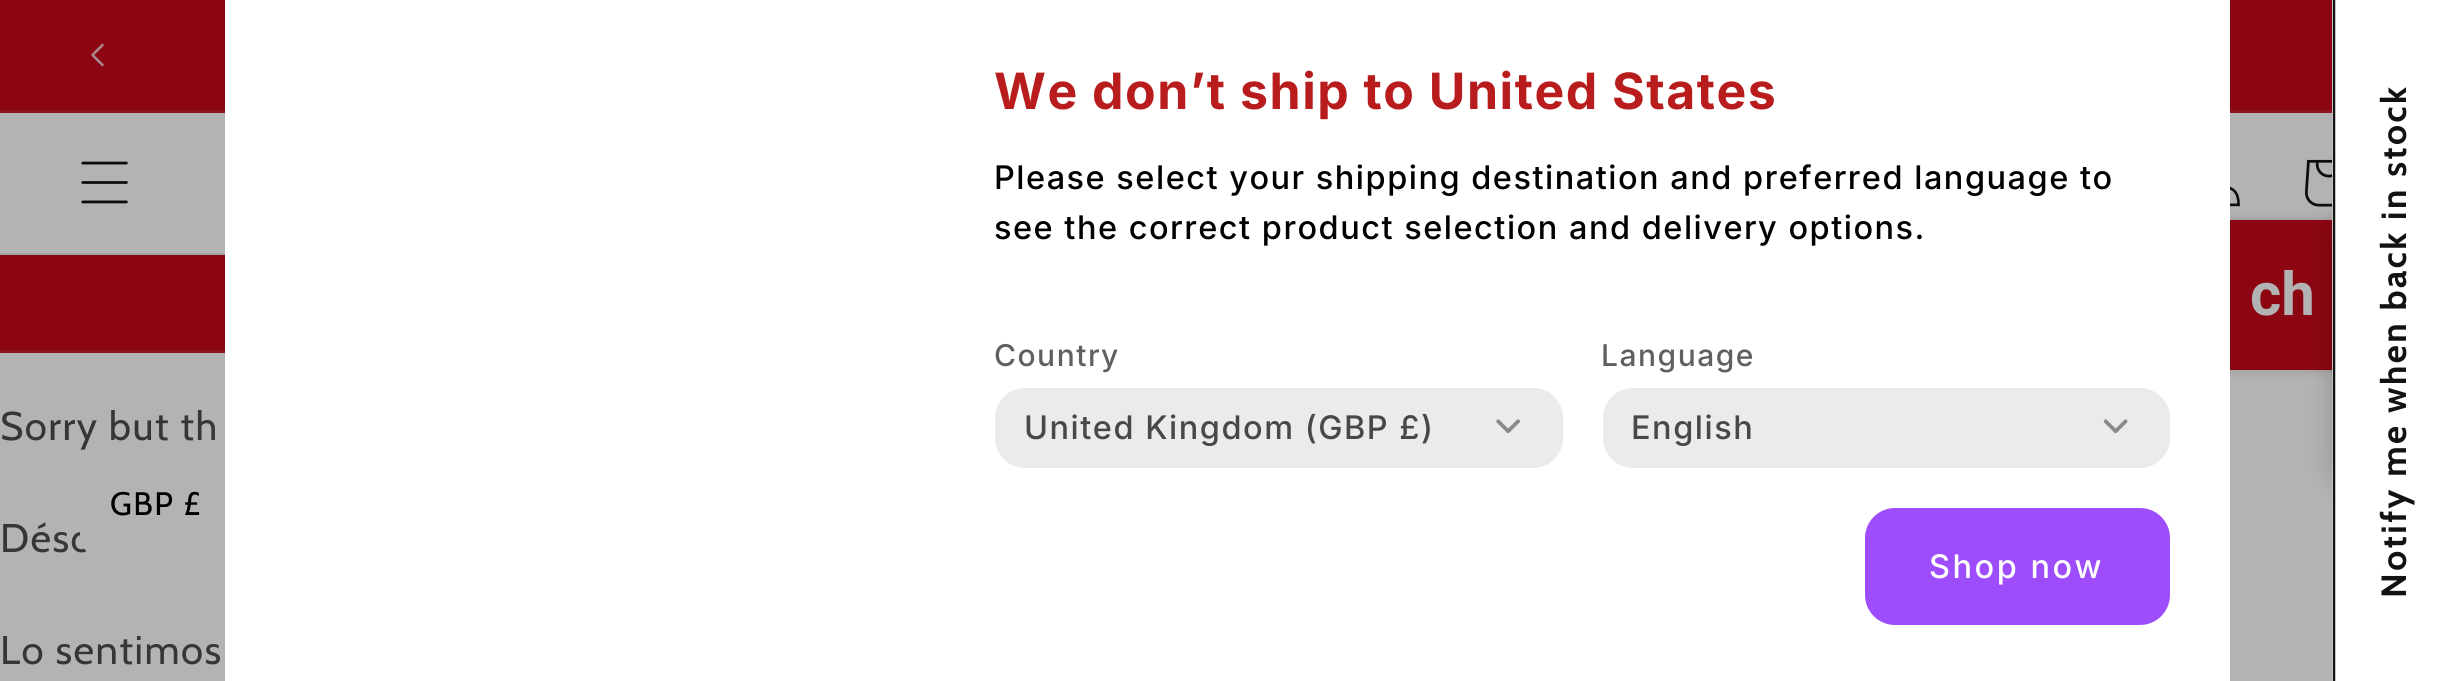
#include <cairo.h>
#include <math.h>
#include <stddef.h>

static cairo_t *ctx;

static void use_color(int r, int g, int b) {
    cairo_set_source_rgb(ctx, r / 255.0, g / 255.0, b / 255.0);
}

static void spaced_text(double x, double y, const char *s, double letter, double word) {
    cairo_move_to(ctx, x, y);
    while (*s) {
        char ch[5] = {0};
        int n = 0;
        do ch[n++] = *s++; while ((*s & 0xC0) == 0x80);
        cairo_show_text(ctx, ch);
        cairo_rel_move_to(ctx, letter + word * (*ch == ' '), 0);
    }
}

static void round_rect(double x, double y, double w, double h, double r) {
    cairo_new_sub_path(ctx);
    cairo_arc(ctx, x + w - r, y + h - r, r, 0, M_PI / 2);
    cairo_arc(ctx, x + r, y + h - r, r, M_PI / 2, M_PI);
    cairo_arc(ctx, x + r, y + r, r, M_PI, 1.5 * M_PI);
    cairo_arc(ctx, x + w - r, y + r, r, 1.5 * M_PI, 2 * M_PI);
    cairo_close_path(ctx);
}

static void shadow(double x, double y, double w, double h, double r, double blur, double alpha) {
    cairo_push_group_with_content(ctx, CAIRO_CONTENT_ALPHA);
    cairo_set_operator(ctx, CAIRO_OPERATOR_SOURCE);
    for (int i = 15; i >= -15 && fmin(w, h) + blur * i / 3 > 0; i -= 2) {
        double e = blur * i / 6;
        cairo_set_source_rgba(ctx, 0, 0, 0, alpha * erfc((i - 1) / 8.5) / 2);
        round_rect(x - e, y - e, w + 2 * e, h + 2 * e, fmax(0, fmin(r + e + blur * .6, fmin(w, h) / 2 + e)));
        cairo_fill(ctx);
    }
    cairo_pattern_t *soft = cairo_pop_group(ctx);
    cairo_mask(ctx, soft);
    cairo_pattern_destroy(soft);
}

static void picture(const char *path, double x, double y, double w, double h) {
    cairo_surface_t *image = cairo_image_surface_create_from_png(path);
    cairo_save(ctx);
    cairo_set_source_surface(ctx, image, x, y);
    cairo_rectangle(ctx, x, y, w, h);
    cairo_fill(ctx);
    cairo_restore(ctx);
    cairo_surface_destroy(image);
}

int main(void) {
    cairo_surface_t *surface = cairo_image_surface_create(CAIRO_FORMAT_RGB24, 2452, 681);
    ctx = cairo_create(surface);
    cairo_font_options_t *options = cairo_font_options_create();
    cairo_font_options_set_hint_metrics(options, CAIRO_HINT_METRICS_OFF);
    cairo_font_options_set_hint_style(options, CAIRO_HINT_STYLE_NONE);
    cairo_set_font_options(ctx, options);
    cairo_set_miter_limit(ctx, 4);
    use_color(179, 179, 179);
    cairo_paint(ctx);
    use_color(165, 165, 165);
    cairo_rectangle(ctx, 0, 253, 225, 2);
    cairo_fill(ctx);
    use_color(139, 6, 18);
    cairo_rectangle(ctx, 0, 0, 2332, 110);
    cairo_fill(ctx);
    use_color(142, 20, 31);
    cairo_rectangle(ctx, 0, 110, 2332, 3);
    cairo_fill(ctx);
    picture("img1.png", 91, 43, 13, 24);
    picture("img5.png", 2230, 186, 10, 21);
    picture("img6.png", 2305, 159, 27, 48);
    use_color(0, 0, 0);
    shadow(1998, 220, 400, 150, 40, 6, 0.15);
    cairo_select_font_face(ctx, "Cabin", CAIRO_FONT_SLANT_NORMAL, CAIRO_FONT_WEIGHT_NORMAL);
    cairo_set_font_size(ctx, 40);
    use_color(54, 54, 54);
    spaced_text(0, 440, "Sorry but th", 1.5, 0);
    spaced_text(0, 552, "Déso", 1.5, 0);
    use_color(179, 179, 179);
    round_rect(80, 443, 218, 120, 30);
    cairo_fill(ctx);
    use_color(255, 255, 255);
    cairo_rectangle(ctx, 225, 0, 2005, 681);
    cairo_fill(ctx);
    cairo_select_font_face(ctx, "Inter", CAIRO_FONT_SLANT_NORMAL, CAIRO_FONT_WEIGHT_BOLD);
    cairo_set_font_size(ctx, 50);
    use_color(184, 28, 28);
    spaced_text(994, 109, "We don’t ship to United States", 1.5, 0);
    cairo_select_font_face(ctx, "Inter Medium", CAIRO_FONT_SLANT_NORMAL, CAIRO_FONT_WEIGHT_NORMAL);
    cairo_set_font_size(ctx, 32.5);
    use_color(0, 0, 0);
    spaced_text(994, 189, "Please select your shipping destination and preferred language to", 1.5, 0);
    spaced_text(994, 239, "see the correct product selection and delivery options.", 1.5, 0);
    cairo_set_font_size(ctx, 30);
    use_color(97, 95, 95);
    spaced_text(994, 366, "Country", 1.5, 0);
    use_color(235, 235, 235);
    round_rect(995, 388, 568, 80, 30);
    cairo_fill(ctx);
    cairo_set_font_size(ctx, 32.5);
    use_color(72, 72, 72);
    spaced_text(1024, 439, "United Kingdom (GBP £)", 1.5, 0);
    picture("img2.png", 1496, 419, 24, 15);
    cairo_set_font_size(ctx, 30);
    use_color(97, 95, 95);
    spaced_text(1601, 366, "Language", 1.5, 0);
    use_color(235, 235, 235);
    round_rect(1603, 388, 567, 80, 30);
    cairo_fill(ctx);
    cairo_set_font_size(ctx, 32.5);
    use_color(72, 72, 72);
    spaced_text(1631, 439, "English", 1.5, 0);
    picture("img3.png", 2103, 419, 25, 15);
    use_color(157, 77, 252);
    round_rect(1865, 508, 305, 117, 30);
    cairo_fill(ctx);
    use_color(255, 255, 255);
    spaced_text(1929, 578, "Shop now", 2.5, 0);
    use_color(139, 6, 18);
    cairo_rectangle(ctx, 2230, 220, 102, 150);
    cairo_fill(ctx);
    use_color(0, 0, 0);
    shadow(2338, 215, 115, 273, 25, 15, 0.3);
    use_color(255, 255, 255);
    cairo_new_path(ctx);
    cairo_move_to(ctx, 2332, 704);
    cairo_line_to(ctx, 2332, -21);
    cairo_curve_to(ctx, 2332, -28, 2338, -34, 2345, -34);
    cairo_line_to(ctx, 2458, -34);
    cairo_line_to(ctx, 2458, 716);
    cairo_line_to(ctx, 2345, 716);
    cairo_curve_to(ctx, 2338, 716, 2332, 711, 2332, 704);
    cairo_close_path(ctx);
    cairo_fill(ctx);
    cairo_new_path(ctx);
    cairo_move_to(ctx, 2334, 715);
    cairo_line_to(ctx, 2334, -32.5);
    cairo_line_to(ctx, 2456, -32.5);
    cairo_line_to(ctx, 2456, 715);
    cairo_close_path(ctx);
    use_color(18, 18, 18);
    cairo_set_line_width(ctx, 2.5);
    cairo_stroke(ctx);
    cairo_select_font_face(ctx, "Cabin", CAIRO_FONT_SLANT_NORMAL, CAIRO_FONT_WEIGHT_BOLD);
    cairo_set_font_size(ctx, 35);
    cairo_save(ctx);
    cairo_translate(ctx, 2406, 598);
    cairo_rotate(ctx, -90 * M_PI / 180);
    spaced_text(0, 0, "Notify me when back in stock", 2.5, 0);
    cairo_restore(ctx);
    picture("img4.png", 81, 161, 47, 43);
    use_color(139, 6, 18);
    cairo_rectangle(ctx, 0, 256, 225, 94);
    cairo_fill(ctx);
    use_color(129, 6, 18);
    cairo_rectangle(ctx, 0, 255, 225, 1);
    cairo_fill(ctx);
    use_color(142, 20, 31);
    cairo_rectangle(ctx, 0, 350, 225, 3);
    cairo_fill(ctx);
    cairo_select_font_face(ctx, "Roboto", CAIRO_FONT_SLANT_NORMAL, CAIRO_FONT_WEIGHT_BOLD);
    cairo_set_font_size(ctx, 60);
    use_color(179, 179, 179);
    cairo_move_to(ctx, 2250, 315);
    cairo_show_text(ctx, "ch");
    cairo_select_font_face(ctx, "Cabin", CAIRO_FONT_SLANT_NORMAL, CAIRO_FONT_WEIGHT_NORMAL);
    cairo_set_font_size(ctx, 40);
    use_color(54, 54, 54);
    spaced_text(0, 664, "Lo sentimos", 1.5, 0);
    cairo_set_font_size(ctx, 32.5);
    use_color(0, 0, 0);
    spaced_text(110, 515, "GBP £", 1.5, 0);
    cairo_surface_write_to_png(surface, "result.png");
    cairo_font_options_destroy(options);
    cairo_destroy(ctx);
    cairo_surface_destroy(surface);
    return 0;
}
